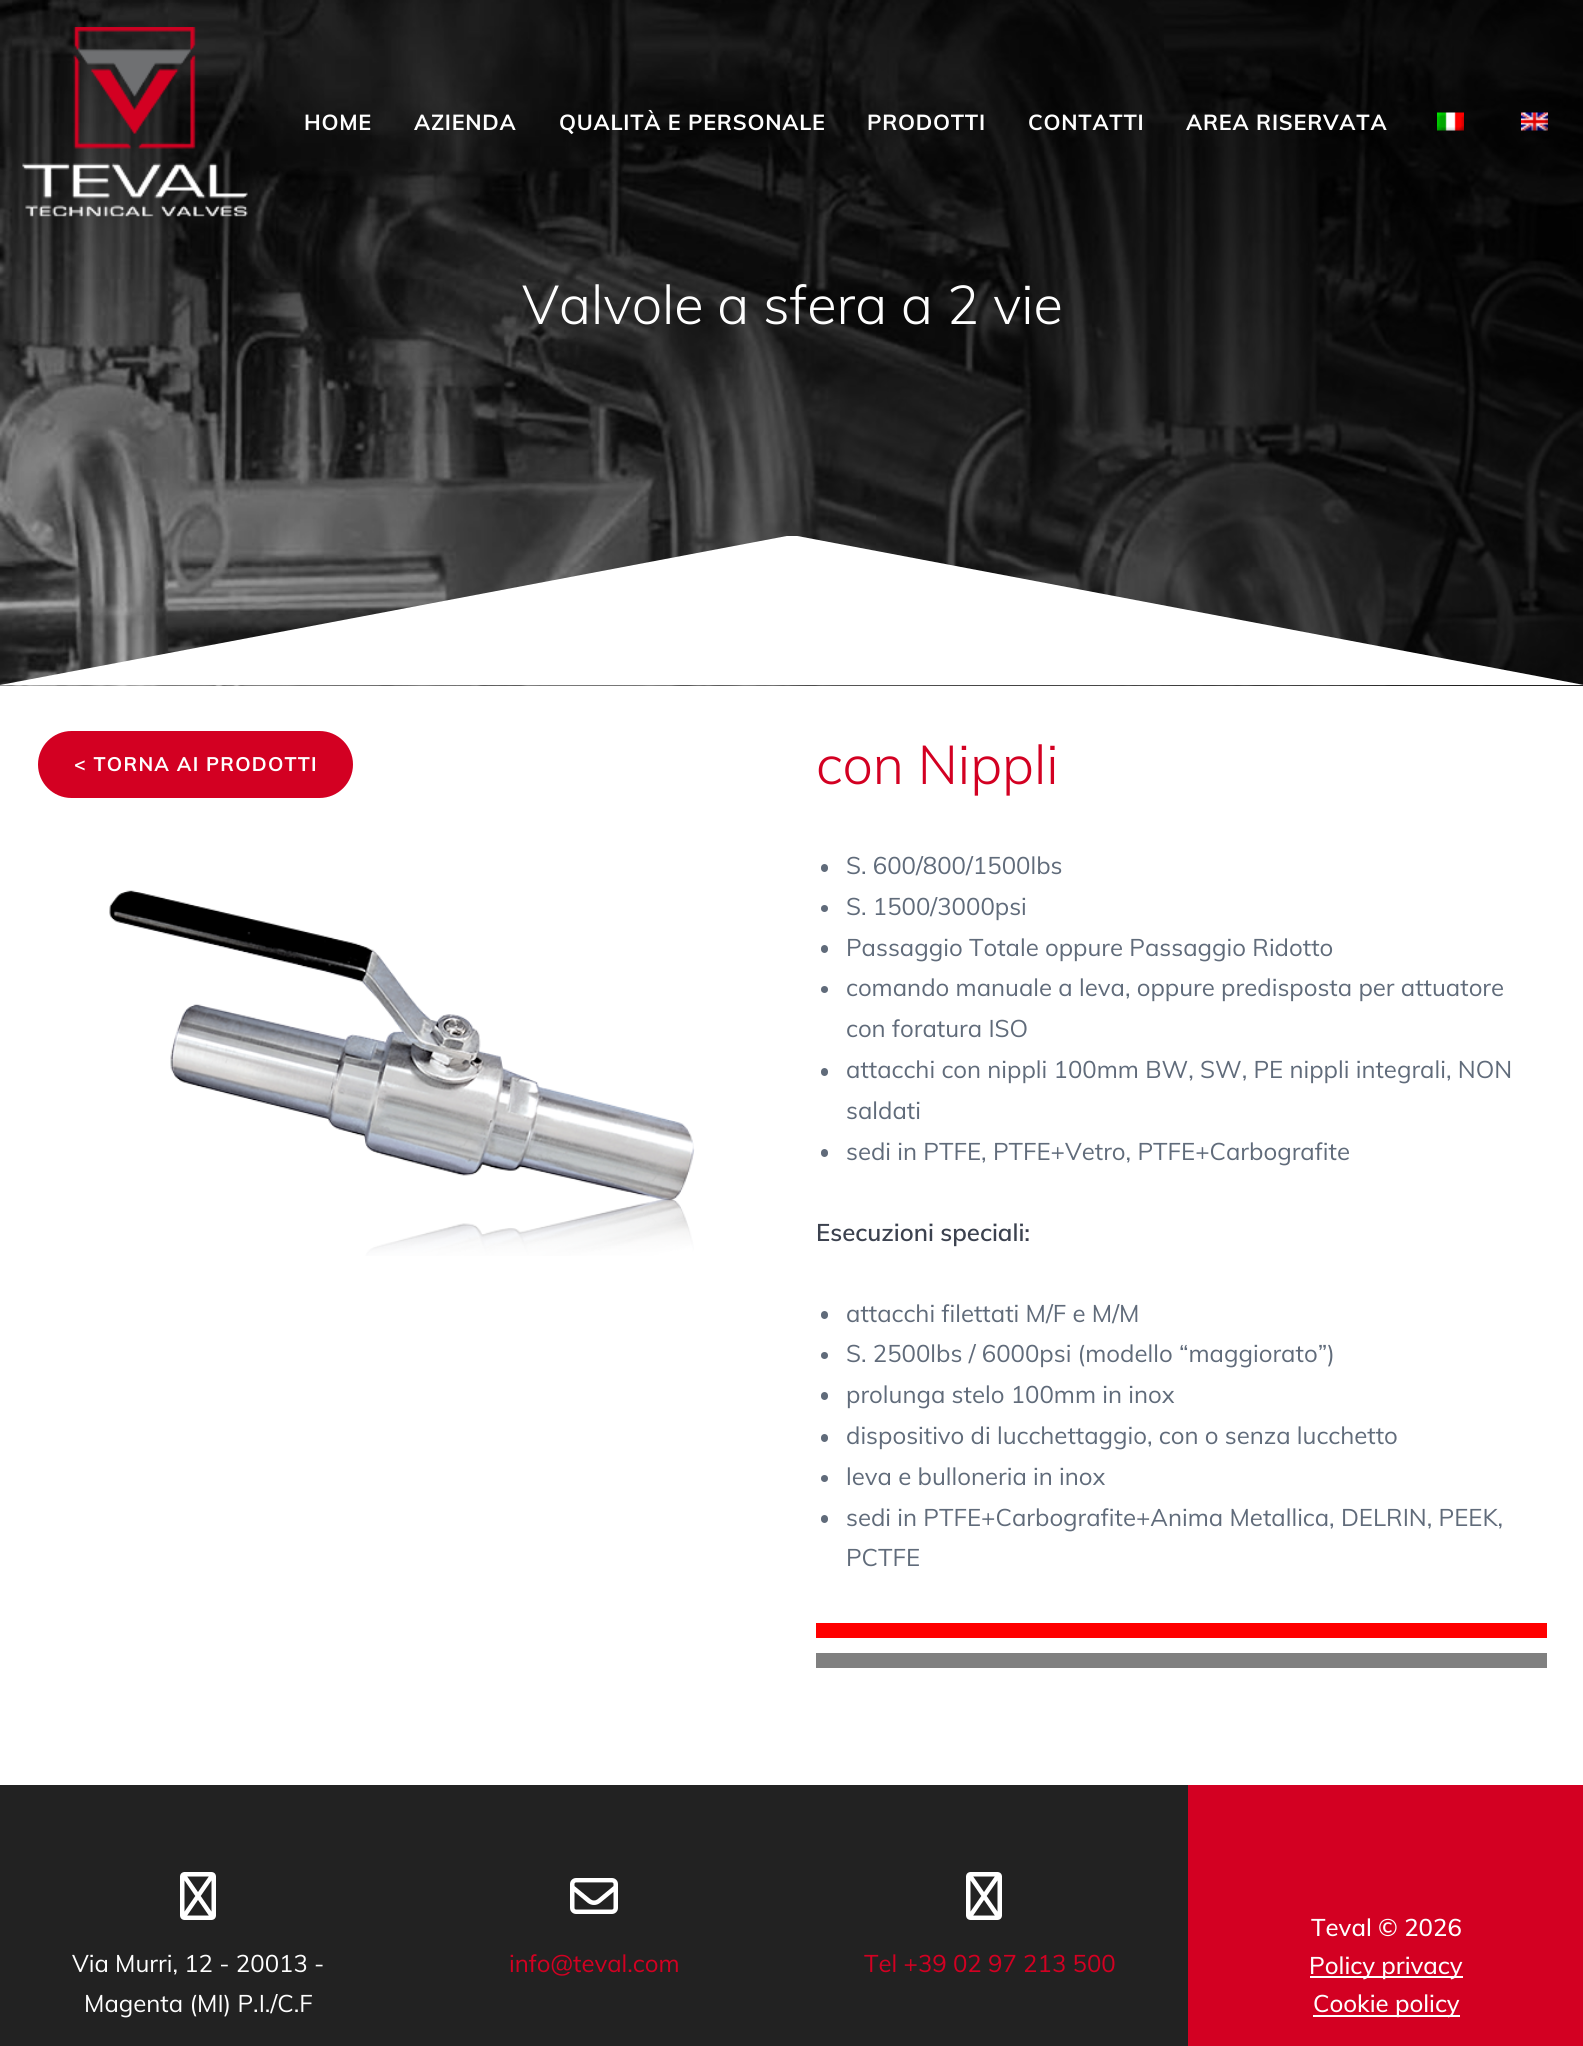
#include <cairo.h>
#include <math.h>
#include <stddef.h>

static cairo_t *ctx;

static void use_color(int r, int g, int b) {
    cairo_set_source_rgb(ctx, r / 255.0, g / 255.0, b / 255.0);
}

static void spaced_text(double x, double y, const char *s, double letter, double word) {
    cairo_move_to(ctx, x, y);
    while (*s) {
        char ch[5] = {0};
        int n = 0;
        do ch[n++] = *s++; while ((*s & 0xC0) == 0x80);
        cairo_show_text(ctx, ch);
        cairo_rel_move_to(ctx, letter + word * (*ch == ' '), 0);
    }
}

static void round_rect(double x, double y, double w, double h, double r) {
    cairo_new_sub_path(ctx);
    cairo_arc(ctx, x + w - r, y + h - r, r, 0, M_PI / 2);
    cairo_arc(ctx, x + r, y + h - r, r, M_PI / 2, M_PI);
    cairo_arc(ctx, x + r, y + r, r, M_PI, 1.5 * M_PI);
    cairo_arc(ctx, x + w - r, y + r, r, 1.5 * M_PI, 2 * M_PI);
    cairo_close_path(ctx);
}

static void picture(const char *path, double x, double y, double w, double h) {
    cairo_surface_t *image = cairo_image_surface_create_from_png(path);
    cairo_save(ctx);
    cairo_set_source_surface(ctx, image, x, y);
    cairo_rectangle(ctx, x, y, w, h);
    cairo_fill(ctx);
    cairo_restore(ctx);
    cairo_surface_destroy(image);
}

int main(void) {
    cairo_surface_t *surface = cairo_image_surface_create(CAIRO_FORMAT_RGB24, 1583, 2046);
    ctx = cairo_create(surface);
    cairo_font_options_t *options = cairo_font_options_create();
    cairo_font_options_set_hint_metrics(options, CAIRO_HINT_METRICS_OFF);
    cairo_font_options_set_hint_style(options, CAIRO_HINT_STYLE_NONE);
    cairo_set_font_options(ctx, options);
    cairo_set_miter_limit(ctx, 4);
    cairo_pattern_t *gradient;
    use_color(255, 255, 255);
    cairo_paint(ctx);
    picture("img4.png", 0, 0, 1583, 686);
    gradient = cairo_pattern_create_linear(0, 343, 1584, 343);
    cairo_pattern_add_color_stop_rgba(gradient, 0, 0, 0, 0, 0.15);
    cairo_pattern_add_color_stop_rgba(gradient, 1, 0, 0, 0, 0.81);
    cairo_set_source(ctx, gradient);
    cairo_pattern_destroy(gradient);
    cairo_rectangle(ctx, 0, 0, 1583, 686);
    cairo_fill(ctx);
    picture("img1.png", 22, 27, 226, 190);
    cairo_select_font_face(ctx, "Muli", CAIRO_FONT_SLANT_NORMAL, CAIRO_FONT_WEIGHT_BOLD);
    cairo_set_font_size(ctx, 21.6);
    use_color(254, 254, 254);
    spaced_text(304, 130, "HOME", 0.75, 0);
    spaced_text(414, 130, "AZIENDA", 0.75, 0);
    spaced_text(559, 130, "QUALITÀ E PERSONALE", 0.75, 0);
    spaced_text(867, 130, "PRODOTTI", 0.75, 0);
    spaced_text(1028, 130, "CONTATTI", 0.75, 0);
    spaced_text(1186, 130, "AREA RISERVATA", 0.75, 0);
    picture("img2.png", 1437, 112, 27, 19);
    picture("img3.png", 1521, 112, 27, 19);
    cairo_select_font_face(ctx, "Muli Light", CAIRO_FONT_SLANT_NORMAL, CAIRO_FONT_WEIGHT_NORMAL);
    cairo_set_font_size(ctx, 54);
    cairo_move_to(ctx, 522, 324);
    cairo_show_text(ctx, "Valvole a sfera a 2 vie");
    cairo_save(ctx);
    cairo_rectangle(ctx, 0, 536, 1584, 150);
    cairo_clip(ctx);
    use_color(255, 255, 255);
    cairo_new_path(ctx);
    cairo_move_to(ctx, 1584, 685);
    cairo_line_to(ctx, 792, 535);
    cairo_line_to(ctx, 0, 685);
    cairo_close_path(ctx);
    cairo_fill(ctx);
    cairo_restore(ctx);
    use_color(211, 0, 34);
    round_rect(38, 731, 315, 67, 33.5);
    cairo_fill(ctx);
    cairo_select_font_face(ctx, "Muli", CAIRO_FONT_SLANT_NORMAL, CAIRO_FONT_WEIGHT_BOLD);
    cairo_set_font_size(ctx, 19.5);
    use_color(254, 254, 254);
    spaced_text(74, 771, "< TORNA AI PRODOTTI", 1.25, 0);
    picture("img5.png", 109, 890, 586, 366);
    cairo_select_font_face(ctx, "Muli Light", CAIRO_FONT_SLANT_NORMAL, CAIRO_FONT_WEIGHT_NORMAL);
    cairo_set_font_size(ctx, 54);
    use_color(211, 0, 34);
    cairo_move_to(ctx, 816, 784);
    cairo_show_text(ctx, "con Nippli");
    use_color(96, 107, 122);
    round_rect(821, 864, 7, 8, 3.5);
    cairo_fill(ctx);
    cairo_select_font_face(ctx, "Muli", CAIRO_FONT_SLANT_NORMAL, CAIRO_FONT_WEIGHT_NORMAL);
    cairo_set_font_size(ctx, 24);
    cairo_move_to(ctx, 846, 874);
    cairo_show_text(ctx, "S. 600/800/1500lbs");
    cairo_new_path(ctx);
    cairo_arc(ctx, 824.5, 908.5, 3.5, 0, 2 * M_PI);
    cairo_fill(ctx);
    cairo_move_to(ctx, 846, 915);
    cairo_show_text(ctx, "S. 1500/3000psi");
    round_rect(821, 945, 7, 8, 3.5);
    cairo_fill(ctx);
    cairo_move_to(ctx, 846, 956);
    cairo_show_text(ctx, "Passaggio Totale oppure Passaggio Ridotto");
    cairo_new_path(ctx);
    cairo_arc(ctx, 824.5, 989.5, 3.5, 0, 2 * M_PI);
    cairo_fill(ctx);
    cairo_move_to(ctx, 846, 996);
    cairo_show_text(ctx, "comando manuale a leva, oppure predisposta per attuatore");
    cairo_move_to(ctx, 846, 1037);
    cairo_show_text(ctx, "con foratura ISO");
    round_rect(821, 1068, 7, 8, 3.5);
    cairo_fill(ctx);
    cairo_move_to(ctx, 846, 1078);
    cairo_show_text(ctx, "attacchi con nippli 100mm BW, SW, PE nippli integrali, NON");
    cairo_move_to(ctx, 846, 1119);
    cairo_show_text(ctx, "saldati");
    round_rect(821, 1149, 7, 8, 3.5);
    cairo_fill(ctx);
    cairo_move_to(ctx, 846, 1160);
    cairo_show_text(ctx, "sedi in PTFE, PTFE+Vetro, PTFE+Carbografite");
    cairo_select_font_face(ctx, "Muli SemiBold", CAIRO_FONT_SLANT_NORMAL, CAIRO_FONT_WEIGHT_NORMAL);
    use_color(60, 66, 79);
    cairo_move_to(ctx, 816, 1241);
    cairo_show_text(ctx, "Esecuzioni speciali:");
    use_color(96, 107, 122);
    round_rect(821, 1311, 7, 8, 3.5);
    cairo_fill(ctx);
    cairo_select_font_face(ctx, "Muli", CAIRO_FONT_SLANT_NORMAL, CAIRO_FONT_WEIGHT_NORMAL);
    cairo_move_to(ctx, 846, 1322);
    cairo_show_text(ctx, "attacchi filettati M/F e M/M");
    cairo_new_path(ctx);
    cairo_arc(ctx, 824.5, 1355.5, 3.5, 0, 2 * M_PI);
    cairo_fill(ctx);
    cairo_move_to(ctx, 846, 1362);
    cairo_show_text(ctx, "S. 2500lbs / 6000psi (modello “maggiorato”)");
    round_rect(821, 1392, 7, 8, 3.5);
    cairo_fill(ctx);
    cairo_move_to(ctx, 846, 1403);
    cairo_show_text(ctx, "prolunga stelo 100mm in inox");
    round_rect(821, 1434, 7, 8, 3.5);
    cairo_fill(ctx);
    cairo_move_to(ctx, 846, 1444);
    cairo_show_text(ctx, "dispositivo di lucchettaggio, con o senza lucchetto");
    cairo_new_path(ctx);
    cairo_arc(ctx, 824.5, 1478.5, 3.5, 0, 2 * M_PI);
    cairo_fill(ctx);
    cairo_move_to(ctx, 846, 1485);
    cairo_show_text(ctx, "leva e bulloneria in inox");
    round_rect(821, 1515, 7, 8, 3.5);
    cairo_fill(ctx);
    cairo_move_to(ctx, 846, 1526);
    cairo_show_text(ctx, "sedi in PTFE+Carbografite+Anima Metallica, DELRIN, PEEK,");
    cairo_move_to(ctx, 846, 1566);
    cairo_show_text(ctx, "PCTFE");
    use_color(255, 0, 0);
    cairo_rectangle(ctx, 816, 1623, 731, 15);
    cairo_fill(ctx);
    use_color(128, 128, 128);
    cairo_rectangle(ctx, 816, 1653, 731, 15);
    cairo_fill(ctx);
    use_color(34, 34, 34);
    cairo_rectangle(ctx, 0, 1785, 1188, 261);
    cairo_fill(ctx);
    picture("img6.png", 180, 1872, 36, 48);
    use_color(254, 254, 254);
    cairo_move_to(ctx, 72, 1972);
    cairo_show_text(ctx, "Via Murri, 12 - 20013 -");
    cairo_move_to(ctx, 84, 2012);
    cairo_show_text(ctx, "Magenta (MI) P.I./C.F");
    picture("img7.png", 570, 1878, 48, 36);
    use_color(211, 0, 34);
    cairo_move_to(ctx, 509, 1972);
    cairo_show_text(ctx, "info@teval.com");
    picture("img6.png", 966, 1872, 36, 48);
    cairo_move_to(ctx, 864, 1972);
    cairo_show_text(ctx, "Tel +39 02 97 213 500");
    cairo_rectangle(ctx, 1188, 1785, 395, 261);
    cairo_fill(ctx);
    cairo_select_font_face(ctx, "Muli Medium", CAIRO_FONT_SLANT_NORMAL, CAIRO_FONT_WEIGHT_NORMAL);
    use_color(254, 254, 254);
    cairo_move_to(ctx, 1311, 1936);
    cairo_show_text(ctx, "Teval © 2026");
    use_color(255, 255, 255);
    cairo_rectangle(ctx, 1310, 1976, 153, 2);
    cairo_fill(ctx);
    use_color(254, 254, 254);
    cairo_move_to(ctx, 1309, 1974);
    cairo_show_text(ctx, "Policy privacy");
    use_color(255, 255, 255);
    cairo_rectangle(ctx, 1313, 2015, 147, 2);
    cairo_fill(ctx);
    use_color(254, 254, 254);
    cairo_move_to(ctx, 1313, 2012);
    cairo_show_text(ctx, "Cookie policy");
    cairo_surface_write_to_png(surface, "result.png");
    cairo_font_options_destroy(options);
    cairo_destroy(ctx);
    cairo_surface_destroy(surface);
    return 0;
}
